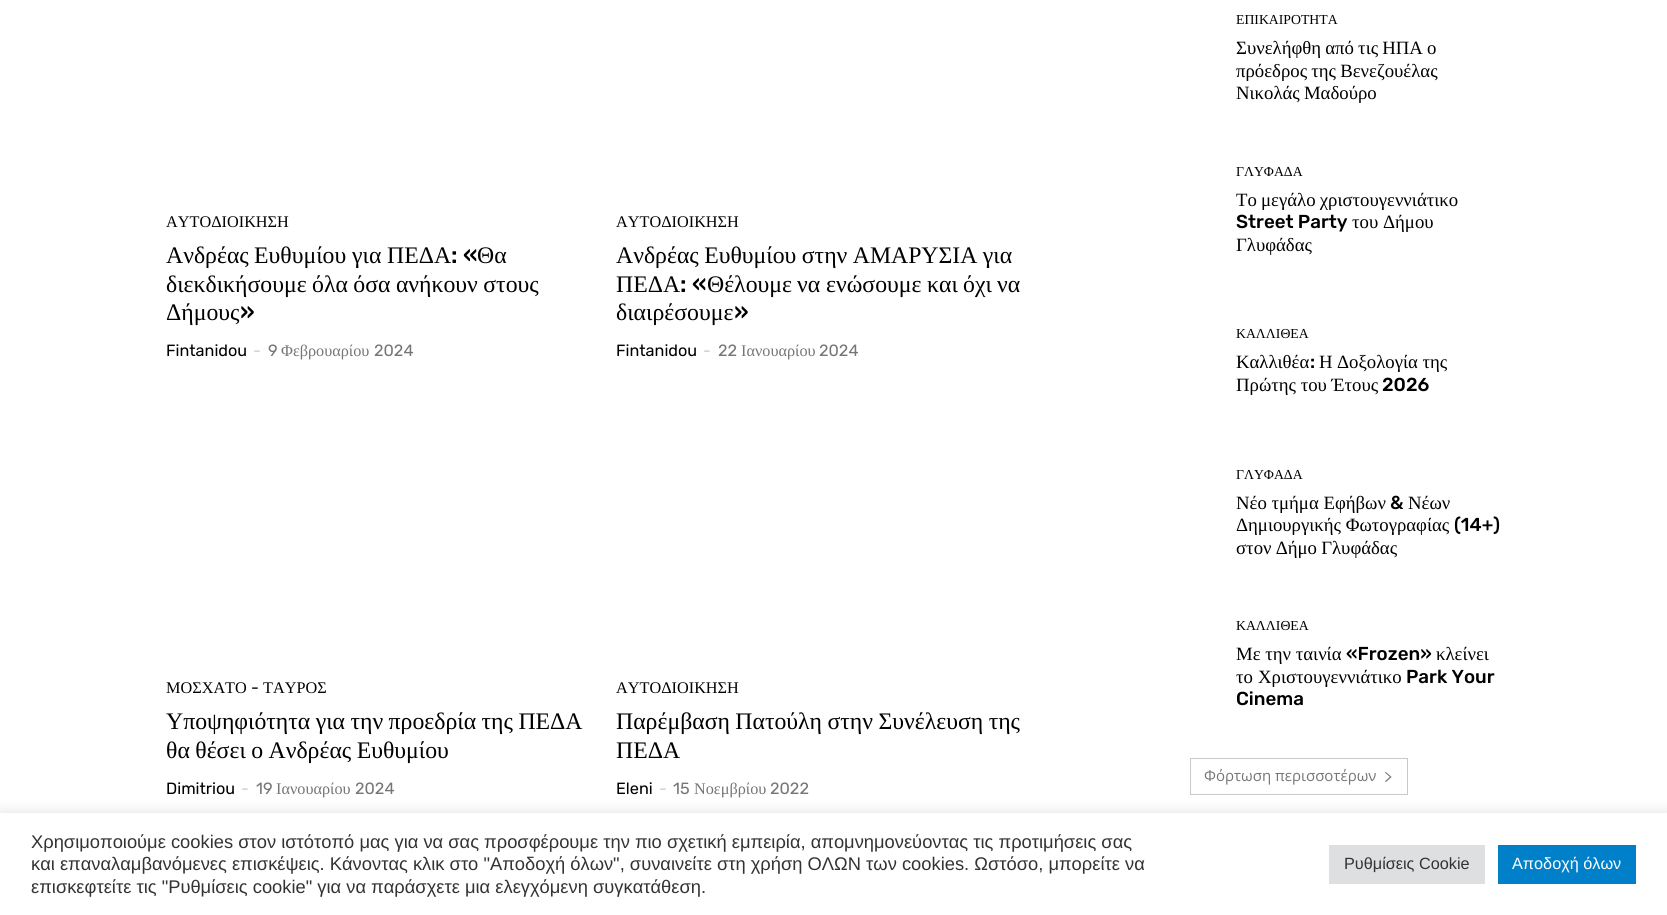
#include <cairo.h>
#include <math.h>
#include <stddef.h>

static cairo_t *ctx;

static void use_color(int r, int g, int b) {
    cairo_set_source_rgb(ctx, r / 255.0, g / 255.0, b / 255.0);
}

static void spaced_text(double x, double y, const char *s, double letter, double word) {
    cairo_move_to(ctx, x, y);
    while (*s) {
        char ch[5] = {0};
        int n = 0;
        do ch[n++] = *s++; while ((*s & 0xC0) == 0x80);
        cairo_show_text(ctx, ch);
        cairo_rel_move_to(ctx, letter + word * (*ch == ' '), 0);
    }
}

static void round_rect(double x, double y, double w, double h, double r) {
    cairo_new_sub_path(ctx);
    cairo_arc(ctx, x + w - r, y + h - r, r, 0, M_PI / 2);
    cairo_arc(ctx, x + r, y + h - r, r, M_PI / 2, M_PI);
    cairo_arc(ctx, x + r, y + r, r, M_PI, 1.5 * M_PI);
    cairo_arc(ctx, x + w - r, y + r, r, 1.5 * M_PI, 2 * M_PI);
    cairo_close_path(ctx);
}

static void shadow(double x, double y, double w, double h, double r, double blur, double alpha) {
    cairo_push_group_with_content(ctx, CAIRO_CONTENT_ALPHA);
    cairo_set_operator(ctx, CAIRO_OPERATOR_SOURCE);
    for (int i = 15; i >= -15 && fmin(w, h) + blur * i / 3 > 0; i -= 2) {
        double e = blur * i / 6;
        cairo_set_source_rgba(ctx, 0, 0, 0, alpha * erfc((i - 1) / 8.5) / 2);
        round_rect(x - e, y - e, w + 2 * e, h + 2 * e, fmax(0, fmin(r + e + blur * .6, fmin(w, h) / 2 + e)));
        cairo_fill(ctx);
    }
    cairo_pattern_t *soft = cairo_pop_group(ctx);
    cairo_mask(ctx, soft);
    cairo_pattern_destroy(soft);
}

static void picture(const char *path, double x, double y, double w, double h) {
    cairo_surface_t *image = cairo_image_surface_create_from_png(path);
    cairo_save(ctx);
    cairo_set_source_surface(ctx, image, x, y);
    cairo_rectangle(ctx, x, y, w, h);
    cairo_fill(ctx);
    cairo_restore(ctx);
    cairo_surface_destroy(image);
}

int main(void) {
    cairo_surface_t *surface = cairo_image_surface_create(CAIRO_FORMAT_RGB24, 1667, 915);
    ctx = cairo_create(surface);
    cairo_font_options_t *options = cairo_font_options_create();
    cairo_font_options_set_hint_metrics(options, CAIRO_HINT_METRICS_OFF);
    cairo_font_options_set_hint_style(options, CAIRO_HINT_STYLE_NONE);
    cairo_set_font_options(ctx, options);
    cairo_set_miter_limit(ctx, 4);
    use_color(255, 255, 255);
    cairo_paint(ctx);
    cairo_select_font_face(ctx, "Liberation Serif", CAIRO_FONT_SLANT_NORMAL, CAIRO_FONT_WEIGHT_NORMAL);
    cairo_set_font_size(ctx, 16.25);
    use_color(0, 0, 0);
    cairo_move_to(ctx, 166, 227);
    cairo_show_text(ctx, "ΑΥΤΟΔΙΟΙΚΗΣΗ");
    cairo_set_font_size(ctx, 23.75);
    cairo_move_to(ctx, 166, 263);
    cairo_show_text(ctx, "Ανδρέας");
    cairo_move_to(ctx, 254, 263);
    cairo_show_text(ctx, "Ευθυμίου");
    cairo_move_to(ctx, 352, 263);
    cairo_show_text(ctx, "για");
    cairo_move_to(ctx, 387, 263);
    cairo_show_text(ctx, "ΠΕΔΑ");
    cairo_select_font_face(ctx, "Rubik Medium", CAIRO_FONT_SLANT_NORMAL, CAIRO_FONT_WEIGHT_NORMAL);
    cairo_move_to(ctx, 451, 263);
    cairo_show_text(ctx, ": «");
    cairo_select_font_face(ctx, "Liberation Serif", CAIRO_FONT_SLANT_NORMAL, CAIRO_FONT_WEIGHT_NORMAL);
    cairo_move_to(ctx, 477, 263);
    cairo_show_text(ctx, "Θα");
    spaced_text(166, 292, "διεκδικήσουμε όλα όσα ανήκουν στους", 0, -0.5);
    cairo_move_to(ctx, 166, 320);
    cairo_show_text(ctx, "Δήμους");
    cairo_select_font_face(ctx, "Rubik Medium", CAIRO_FONT_SLANT_NORMAL, CAIRO_FONT_WEIGHT_NORMAL);
    cairo_move_to(ctx, 240, 320);
    cairo_show_text(ctx, "»");
    cairo_select_font_face(ctx, "Rubik", CAIRO_FONT_SLANT_NORMAL, CAIRO_FONT_WEIGHT_NORMAL);
    cairo_set_font_size(ctx, 16.25);
    cairo_move_to(ctx, 166, 356);
    cairo_show_text(ctx, "Fintanidou");
    use_color(204, 204, 204);
    cairo_move_to(ctx, 253, 356);
    cairo_show_text(ctx, "-");
    use_color(118, 118, 118);
    cairo_move_to(ctx, 268, 356);
    cairo_show_text(ctx, "9");
    cairo_select_font_face(ctx, "Liberation Serif", CAIRO_FONT_SLANT_NORMAL, CAIRO_FONT_WEIGHT_NORMAL);
    cairo_move_to(ctx, 281, 356);
    cairo_show_text(ctx, "Φεβρουαρίου");
    cairo_select_font_face(ctx, "Rubik", CAIRO_FONT_SLANT_NORMAL, CAIRO_FONT_WEIGHT_NORMAL);
    cairo_move_to(ctx, 374, 356);
    cairo_show_text(ctx, "2024");
    cairo_select_font_face(ctx, "Liberation Serif", CAIRO_FONT_SLANT_NORMAL, CAIRO_FONT_WEIGHT_NORMAL);
    use_color(0, 0, 0);
    cairo_move_to(ctx, 616, 227);
    cairo_show_text(ctx, "ΑΥΤΟΔΙΟΙΚΗΣΗ");
    cairo_set_font_size(ctx, 23.75);
    spaced_text(616, 263, "Ανδρέας Ευθυμίου στην ΑΜΑΡΥΣΙΑ για", 0, -0.5);
    cairo_move_to(ctx, 616, 292);
    cairo_show_text(ctx, "ΠΕΔΑ");
    cairo_select_font_face(ctx, "Rubik Medium", CAIRO_FONT_SLANT_NORMAL, CAIRO_FONT_WEIGHT_NORMAL);
    cairo_move_to(ctx, 680, 292);
    cairo_show_text(ctx, ": «");
    cairo_select_font_face(ctx, "Liberation Serif", CAIRO_FONT_SLANT_NORMAL, CAIRO_FONT_WEIGHT_NORMAL);
    cairo_move_to(ctx, 707, 292);
    cairo_show_text(ctx, "Θέλουμε");
    cairo_move_to(ctx, 797, 292);
    cairo_show_text(ctx, "να");
    cairo_move_to(ctx, 826, 292);
    cairo_show_text(ctx, "ενώσουμε");
    cairo_move_to(ctx, 927, 292);
    cairo_show_text(ctx, "και");
    cairo_move_to(ctx, 963, 292);
    cairo_show_text(ctx, "όχι");
    cairo_move_to(ctx, 997, 292);
    cairo_show_text(ctx, "να");
    cairo_move_to(ctx, 616, 320);
    cairo_show_text(ctx, "διαιρέσουμε");
    cairo_select_font_face(ctx, "Rubik Medium", CAIRO_FONT_SLANT_NORMAL, CAIRO_FONT_WEIGHT_NORMAL);
    cairo_move_to(ctx, 734, 320);
    cairo_show_text(ctx, "»");
    cairo_select_font_face(ctx, "Rubik", CAIRO_FONT_SLANT_NORMAL, CAIRO_FONT_WEIGHT_NORMAL);
    cairo_set_font_size(ctx, 16.25);
    cairo_move_to(ctx, 616, 356);
    cairo_show_text(ctx, "Fintanidou");
    use_color(204, 204, 204);
    cairo_move_to(ctx, 703, 356);
    cairo_show_text(ctx, "-");
    use_color(118, 118, 118);
    cairo_move_to(ctx, 718, 356);
    cairo_show_text(ctx, "22");
    cairo_select_font_face(ctx, "Liberation Serif", CAIRO_FONT_SLANT_NORMAL, CAIRO_FONT_WEIGHT_NORMAL);
    cairo_move_to(ctx, 741, 356);
    cairo_show_text(ctx, "Ιανουαρίου");
    cairo_select_font_face(ctx, "Rubik", CAIRO_FONT_SLANT_NORMAL, CAIRO_FONT_WEIGHT_NORMAL);
    cairo_move_to(ctx, 819, 356);
    cairo_show_text(ctx, "2024");
    cairo_select_font_face(ctx, "Liberation Serif", CAIRO_FONT_SLANT_NORMAL, CAIRO_FONT_WEIGHT_NORMAL);
    use_color(0, 0, 0);
    cairo_move_to(ctx, 166, 693);
    cairo_show_text(ctx, "ΜΟΣΧΑΤΟ");
    cairo_select_font_face(ctx, "Rubik", CAIRO_FONT_SLANT_NORMAL, CAIRO_FONT_WEIGHT_NORMAL);
    cairo_move_to(ctx, 251, 693);
    cairo_show_text(ctx, "-");
    cairo_select_font_face(ctx, "Liberation Serif", CAIRO_FONT_SLANT_NORMAL, CAIRO_FONT_WEIGHT_NORMAL);
    cairo_move_to(ctx, 263, 693);
    cairo_show_text(ctx, "ΤΑΥΡΟΣ");
    cairo_set_font_size(ctx, 23.75);
    spaced_text(166, 729, "Υποψηφιότητα για την προεδρία της ΠΕΔΑ", 0, -0.5);
    spaced_text(166, 758, "θα θέσει ο Ανδρέας Ευθυμίου", 0, -0.5);
    cairo_select_font_face(ctx, "Rubik", CAIRO_FONT_SLANT_NORMAL, CAIRO_FONT_WEIGHT_NORMAL);
    cairo_set_font_size(ctx, 16.25);
    cairo_move_to(ctx, 166, 794);
    cairo_show_text(ctx, "Dimitriou");
    use_color(204, 204, 204);
    cairo_move_to(ctx, 241, 794);
    cairo_show_text(ctx, "-");
    use_color(118, 118, 118);
    cairo_move_to(ctx, 256, 794);
    cairo_show_text(ctx, "19");
    cairo_select_font_face(ctx, "Liberation Serif", CAIRO_FONT_SLANT_NORMAL, CAIRO_FONT_WEIGHT_NORMAL);
    cairo_move_to(ctx, 276, 794);
    cairo_show_text(ctx, "Ιανουαρίου");
    cairo_select_font_face(ctx, "Rubik", CAIRO_FONT_SLANT_NORMAL, CAIRO_FONT_WEIGHT_NORMAL);
    cairo_move_to(ctx, 355, 794);
    cairo_show_text(ctx, "2024");
    cairo_select_font_face(ctx, "Liberation Serif", CAIRO_FONT_SLANT_NORMAL, CAIRO_FONT_WEIGHT_NORMAL);
    use_color(0, 0, 0);
    cairo_move_to(ctx, 616, 693);
    cairo_show_text(ctx, "ΑΥΤΟΔΙΟΙΚΗΣΗ");
    cairo_set_font_size(ctx, 23.75);
    spaced_text(616, 729, "Παρέμβαση Πατούλη στην Συνέλευση της", 0, -0.5);
    cairo_move_to(ctx, 616, 758);
    cairo_show_text(ctx, "ΠΕΔΑ");
    cairo_select_font_face(ctx, "Rubik", CAIRO_FONT_SLANT_NORMAL, CAIRO_FONT_WEIGHT_NORMAL);
    cairo_set_font_size(ctx, 16.25);
    cairo_move_to(ctx, 616, 794);
    cairo_show_text(ctx, "Eleni");
    use_color(204, 204, 204);
    cairo_move_to(ctx, 659, 794);
    cairo_show_text(ctx, "-");
    use_color(118, 118, 118);
    cairo_move_to(ctx, 673, 794);
    cairo_show_text(ctx, "15");
    cairo_select_font_face(ctx, "Liberation Serif", CAIRO_FONT_SLANT_NORMAL, CAIRO_FONT_WEIGHT_NORMAL);
    cairo_move_to(ctx, 694, 794);
    cairo_show_text(ctx, "Νοεμβρίου");
    cairo_select_font_face(ctx, "Rubik", CAIRO_FONT_SLANT_NORMAL, CAIRO_FONT_WEIGHT_NORMAL);
    cairo_move_to(ctx, 770, 794);
    cairo_show_text(ctx, "2022");
    cairo_select_font_face(ctx, "Liberation Serif", CAIRO_FONT_SLANT_NORMAL, CAIRO_FONT_WEIGHT_NORMAL);
    cairo_set_font_size(ctx, 13.75);
    use_color(0, 0, 0);
    cairo_move_to(ctx, 1236, 24);
    cairo_show_text(ctx, "ΕΠΙΚΑΙΡΟΤΗΤΑ");
    cairo_set_font_size(ctx, 18.75);
    spaced_text(1236, 54, "Συνελήφθη από τις ΗΠΑ ο", 0, -0.5);
    spaced_text(1236, 77, "πρόεδρος της Βενεζουέλας", 0, -0.5);
    spaced_text(1236, 99, "Νικολάς Μαδούρο", 0, -0.5);
    cairo_set_font_size(ctx, 13.75);
    cairo_move_to(ctx, 1236, 176);
    cairo_show_text(ctx, "ΓΛΥΦΑΔΑ");
    cairo_set_font_size(ctx, 18.75);
    spaced_text(1236, 206, "Το μεγάλο χριστουγεννιάτικο", 0, -0.5);
    cairo_select_font_face(ctx, "Rubik Medium", CAIRO_FONT_SLANT_NORMAL, CAIRO_FONT_WEIGHT_NORMAL);
    cairo_move_to(ctx, 1236, 228);
    cairo_show_text(ctx, "Street Party");
    cairo_select_font_face(ctx, "Liberation Serif", CAIRO_FONT_SLANT_NORMAL, CAIRO_FONT_WEIGHT_NORMAL);
    cairo_move_to(ctx, 1352, 228);
    cairo_show_text(ctx, "του");
    cairo_move_to(ctx, 1383, 228);
    cairo_show_text(ctx, "Δήμου");
    cairo_move_to(ctx, 1236, 251);
    cairo_show_text(ctx, "Γλυφάδας");
    cairo_set_font_size(ctx, 13.75);
    cairo_move_to(ctx, 1236, 338);
    cairo_show_text(ctx, "ΚΑΛΛΙΘΕΑ");
    cairo_set_font_size(ctx, 18.75);
    cairo_move_to(ctx, 1236, 368);
    cairo_show_text(ctx, "Καλλιθέα");
    cairo_select_font_face(ctx, "Rubik Medium", CAIRO_FONT_SLANT_NORMAL, CAIRO_FONT_WEIGHT_NORMAL);
    cairo_move_to(ctx, 1310, 368);
    cairo_show_text(ctx, ":");
    cairo_select_font_face(ctx, "Liberation Serif", CAIRO_FONT_SLANT_NORMAL, CAIRO_FONT_WEIGHT_NORMAL);
    cairo_move_to(ctx, 1319, 368);
    cairo_show_text(ctx, "Η");
    cairo_move_to(ctx, 1337, 368);
    cairo_show_text(ctx, "Δοξολογία της");
    cairo_move_to(ctx, 1236, 391);
    cairo_show_text(ctx, "Πρώτης του Έτους");
    cairo_select_font_face(ctx, "Rubik Medium", CAIRO_FONT_SLANT_NORMAL, CAIRO_FONT_WEIGHT_NORMAL);
    cairo_move_to(ctx, 1382, 391);
    cairo_show_text(ctx, "2026");
    cairo_select_font_face(ctx, "Liberation Serif", CAIRO_FONT_SLANT_NORMAL, CAIRO_FONT_WEIGHT_NORMAL);
    cairo_set_font_size(ctx, 13.75);
    cairo_move_to(ctx, 1236, 479);
    cairo_show_text(ctx, "ΓΛΥΦΑΔΑ");
    cairo_set_font_size(ctx, 18.75);
    cairo_move_to(ctx, 1236, 509);
    cairo_show_text(ctx, "Νέο τμήμα Εφήβων");
    cairo_select_font_face(ctx, "Rubik Medium", CAIRO_FONT_SLANT_NORMAL, CAIRO_FONT_WEIGHT_NORMAL);
    cairo_move_to(ctx, 1390, 509);
    cairo_show_text(ctx, "&");
    cairo_select_font_face(ctx, "Liberation Serif", CAIRO_FONT_SLANT_NORMAL, CAIRO_FONT_WEIGHT_NORMAL);
    cairo_move_to(ctx, 1408, 509);
    cairo_show_text(ctx, "Νέων");
    cairo_move_to(ctx, 1236, 531);
    cairo_show_text(ctx, "Δημιουργικής Φωτογραφίας");
    cairo_select_font_face(ctx, "Rubik Medium", CAIRO_FONT_SLANT_NORMAL, CAIRO_FONT_WEIGHT_NORMAL);
    cairo_move_to(ctx, 1454, 531);
    cairo_show_text(ctx, "(14+)");
    cairo_select_font_face(ctx, "Liberation Serif", CAIRO_FONT_SLANT_NORMAL, CAIRO_FONT_WEIGHT_NORMAL);
    spaced_text(1236, 554, "στον Δήμο Γλυφάδας", 0, -0.5);
    cairo_set_font_size(ctx, 13.75);
    cairo_move_to(ctx, 1236, 630);
    cairo_show_text(ctx, "ΚΑΛΛΙΘΕΑ");
    cairo_set_font_size(ctx, 18.75);
    cairo_move_to(ctx, 1236, 660);
    cairo_show_text(ctx, "Με την ταινία");
    cairo_select_font_face(ctx, "Rubik Medium", CAIRO_FONT_SLANT_NORMAL, CAIRO_FONT_WEIGHT_NORMAL);
    cairo_move_to(ctx, 1346, 660);
    cairo_show_text(ctx, "«Frozen»");
    cairo_select_font_face(ctx, "Liberation Serif", CAIRO_FONT_SLANT_NORMAL, CAIRO_FONT_WEIGHT_NORMAL);
    cairo_move_to(ctx, 1436, 660);
    cairo_show_text(ctx, "κλείνει");
    cairo_move_to(ctx, 1236, 683);
    cairo_show_text(ctx, "το");
    cairo_move_to(ctx, 1258, 683);
    cairo_show_text(ctx, "Χριστουγεννιάτικο");
    cairo_select_font_face(ctx, "Rubik Medium", CAIRO_FONT_SLANT_NORMAL, CAIRO_FONT_WEIGHT_NORMAL);
    cairo_move_to(ctx, 1406, 683);
    cairo_show_text(ctx, "Park Your");
    cairo_move_to(ctx, 1236, 705);
    cairo_show_text(ctx, "Cinema");
    cairo_rectangle(ctx, 1190.5, 758.5, 217, 36);
    use_color(201, 201, 201);
    cairo_set_line_width(ctx, 1);
    cairo_stroke(ctx);
    cairo_select_font_face(ctx, "Open Sans", CAIRO_FONT_SLANT_NORMAL, CAIRO_FONT_WEIGHT_NORMAL);
    cairo_set_font_size(ctx, 15);
    use_color(118, 118, 118);
    cairo_move_to(ctx, 1204, 781);
    cairo_show_text(ctx, "Φόρτωση περισσοτέρων");
    picture("img1.png", 1385, 772, 7, 10);
    use_color(172, 171, 171);
    shadow(0, 811, 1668, 103, 0, 6, 0.3);
    use_color(255, 255, 255);
    cairo_rectangle(ctx, 0, 813, 1667, 102);
    cairo_fill(ctx);
    cairo_select_font_face(ctx, "Liberation Sans", CAIRO_FONT_SLANT_NORMAL, CAIRO_FONT_WEIGHT_NORMAL);
    cairo_set_font_size(ctx, 18.33);
    use_color(51, 51, 51);
    cairo_move_to(ctx, 31, 848);
    cairo_show_text(ctx, "Χρησιμοποιούμε cookies στον ιστότοπό μας για να σας προσφέρουμε την πιο σχετική εμπειρία, απομνημονεύοντας τις προτιμήσεις σας");
    cairo_move_to(ctx, 31, 870);
    cairo_show_text(ctx, "και επαναλαμβανόμενες επισκέψεις. Κάνοντας κλικ στο \"Αποδοχή όλων\", συναινείτε στη χρήση ΟΛΩΝ των cookies. Ωστόσο, μπορείτε να");
    cairo_move_to(ctx, 31, 893);
    cairo_show_text(ctx, "επισκεφτείτε τις \"Ρυθμίσεις cookie\" για να παράσχετε μια ελεγχόμενη συγκατάθεση.");
    use_color(222, 223, 224);
    cairo_rectangle(ctx, 1329, 845, 156, 39);
    cairo_fill(ctx);
    cairo_set_font_size(ctx, 16.25);
    use_color(51, 51, 51);
    cairo_move_to(ctx, 1344, 869);
    cairo_show_text(ctx, "Ρυθμίσεις Cookie");
    use_color(0, 128, 201);
    cairo_rectangle(ctx, 1498, 845, 138, 39);
    cairo_fill(ctx);
    use_color(255, 255, 255);
    cairo_move_to(ctx, 1512, 869);
    cairo_show_text(ctx, "Αποδοχή όλων");
    cairo_surface_write_to_png(surface, "result.png");
    cairo_font_options_destroy(options);
    cairo_destroy(ctx);
    cairo_surface_destroy(surface);
    return 0;
}
